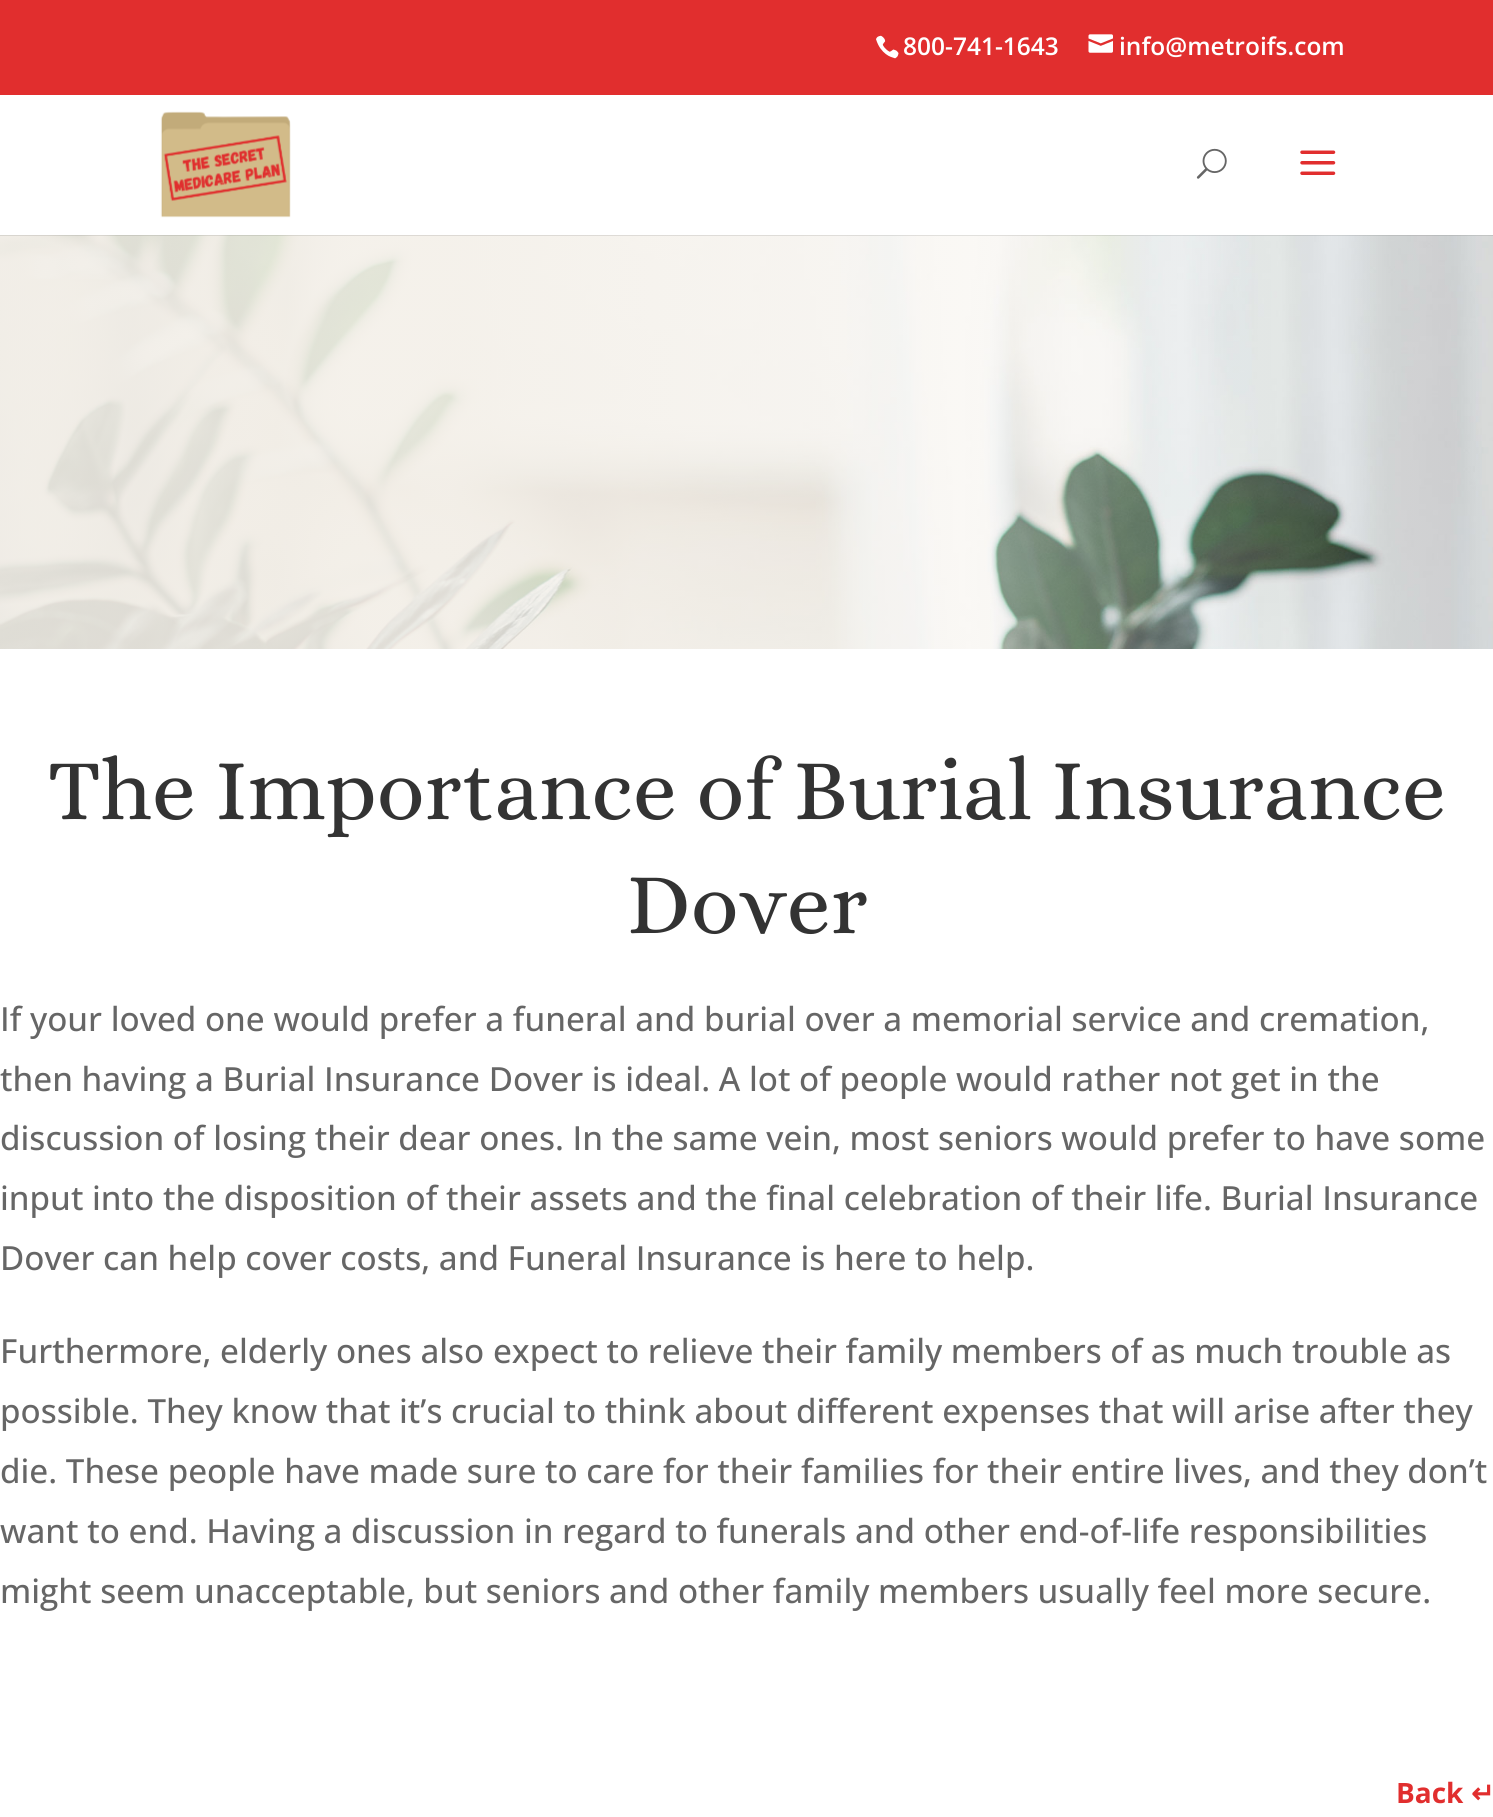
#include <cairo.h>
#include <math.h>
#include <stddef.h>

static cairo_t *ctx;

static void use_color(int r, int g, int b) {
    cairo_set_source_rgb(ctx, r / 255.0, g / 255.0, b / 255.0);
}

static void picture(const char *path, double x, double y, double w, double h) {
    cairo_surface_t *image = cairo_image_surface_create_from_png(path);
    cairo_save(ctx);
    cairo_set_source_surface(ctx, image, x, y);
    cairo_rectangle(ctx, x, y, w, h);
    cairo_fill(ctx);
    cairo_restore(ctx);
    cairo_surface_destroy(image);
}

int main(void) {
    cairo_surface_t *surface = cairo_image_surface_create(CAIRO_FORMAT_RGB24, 1493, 1817);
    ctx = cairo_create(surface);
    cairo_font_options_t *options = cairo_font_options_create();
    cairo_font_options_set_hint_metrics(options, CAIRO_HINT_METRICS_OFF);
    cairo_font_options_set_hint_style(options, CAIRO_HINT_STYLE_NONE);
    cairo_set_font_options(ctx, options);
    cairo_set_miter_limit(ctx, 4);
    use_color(255, 255, 255);
    cairo_paint(ctx);
    use_color(225, 46, 46);
    cairo_rectangle(ctx, 0, 0, 1493, 95);
    cairo_fill(ctx);
    picture("img1.png", 876, 35, 23, 24);
    cairo_select_font_face(ctx, "Open Sans SemiBold", CAIRO_FONT_SLANT_NORMAL, CAIRO_FONT_WEIGHT_NORMAL);
    cairo_set_font_size(ctx, 24.5);
    use_color(255, 255, 255);
    cairo_move_to(ctx, 903, 55);
    cairo_show_text(ctx, "800-741-1643");
    picture("img2.png", 1088, 34, 25, 19);
    cairo_move_to(ctx, 1119, 55);
    cairo_show_text(ctx, "info@metroifs.com");
    picture("img6.png", 0, 235, 1493, 414);
    cairo_set_source_rgba(ctx, 0, 0, 0, 0.1);
    cairo_new_path(ctx);
    cairo_move_to(ctx, 0, 234);
    cairo_line_to(ctx, 0, 236);
    cairo_line_to(ctx, 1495, 236);
    cairo_line_to(ctx, 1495, 96);
    cairo_line_to(ctx, 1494, 96);
    cairo_line_to(ctx, 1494, 234);
    cairo_close_path(ctx);
    cairo_fill(ctx);
    use_color(255, 255, 255);
    cairo_rectangle(ctx, 0, 234, 1493, 1);
    cairo_fill(ctx);
    picture("img3.png", 160, 111, 131, 107);
    picture("img4.png", 1196, 148, 31, 31);
    picture("img5.png", 1300, 150, 36, 25);
    cairo_select_font_face(ctx, "Alice", CAIRO_FONT_SLANT_NORMAL, CAIRO_FONT_WEIGHT_NORMAL);
    cairo_set_font_size(ctx, 87.5);
    use_color(51, 51, 51);
    cairo_move_to(ctx, 48, 819);
    cairo_show_text(ctx, "The Importance of Burial Insurance");
    cairo_move_to(ctx, 627, 933);
    cairo_show_text(ctx, "Dover");
    cairo_select_font_face(ctx, "Open Sans Medium", CAIRO_FONT_SLANT_NORMAL, CAIRO_FONT_WEIGHT_NORMAL);
    cairo_set_font_size(ctx, 33.25);
    use_color(102, 102, 102);
    cairo_move_to(ctx, 0, 1031);
    cairo_show_text(ctx, "If your loved one would prefer a funeral and burial over a memorial service and cremation,");
    cairo_move_to(ctx, 0, 1091);
    cairo_show_text(ctx, "then having a Burial Insurance Dover is ideal. A lot of people would rather not get in the");
    cairo_move_to(ctx, 0, 1150);
    cairo_show_text(ctx, "discussion of losing their dear ones. In the same vein, most seniors would prefer to have some");
    cairo_move_to(ctx, 0, 1210);
    cairo_show_text(ctx, "input into the disposition of their assets and the final celebration of their life. Burial Insurance");
    cairo_move_to(ctx, 0, 1270);
    cairo_show_text(ctx, "Dover can help cover costs, and Funeral Insurance is here to help.");
    cairo_move_to(ctx, 0, 1363);
    cairo_show_text(ctx, "Furthermore, elderly ones also expect to relieve their family members of as much trouble as");
    cairo_move_to(ctx, 0, 1423);
    cairo_show_text(ctx, "possible. They know that it’s crucial to think about different expenses that will arise after they");
    cairo_move_to(ctx, 0, 1483);
    cairo_show_text(ctx, "die. These people have made sure to care for their families for their entire lives, and they don’t");
    cairo_move_to(ctx, 0, 1543);
    cairo_show_text(ctx, "want to end. Having a discussion in regard to funerals and other end-of-life responsibilities");
    cairo_move_to(ctx, 0, 1603);
    cairo_show_text(ctx, "might seem unacceptable, but seniors and other family members usually feel more secure.");
    cairo_select_font_face(ctx, "Open Sans", CAIRO_FONT_SLANT_NORMAL, CAIRO_FONT_WEIGHT_BOLD);
    cairo_set_font_size(ctx, 28);
    use_color(225, 46, 46);
    cairo_move_to(ctx, 1396, 1803);
    cairo_show_text(ctx, "Back");
    cairo_select_font_face(ctx, "DejaVu Sans", CAIRO_FONT_SLANT_NORMAL, CAIRO_FONT_WEIGHT_BOLD);
    cairo_move_to(ctx, 1471, 1803);
    cairo_show_text(ctx, "↵");
    cairo_surface_write_to_png(surface, "result.png");
    cairo_font_options_destroy(options);
    cairo_destroy(ctx);
    cairo_surface_destroy(surface);
    return 0;
}
